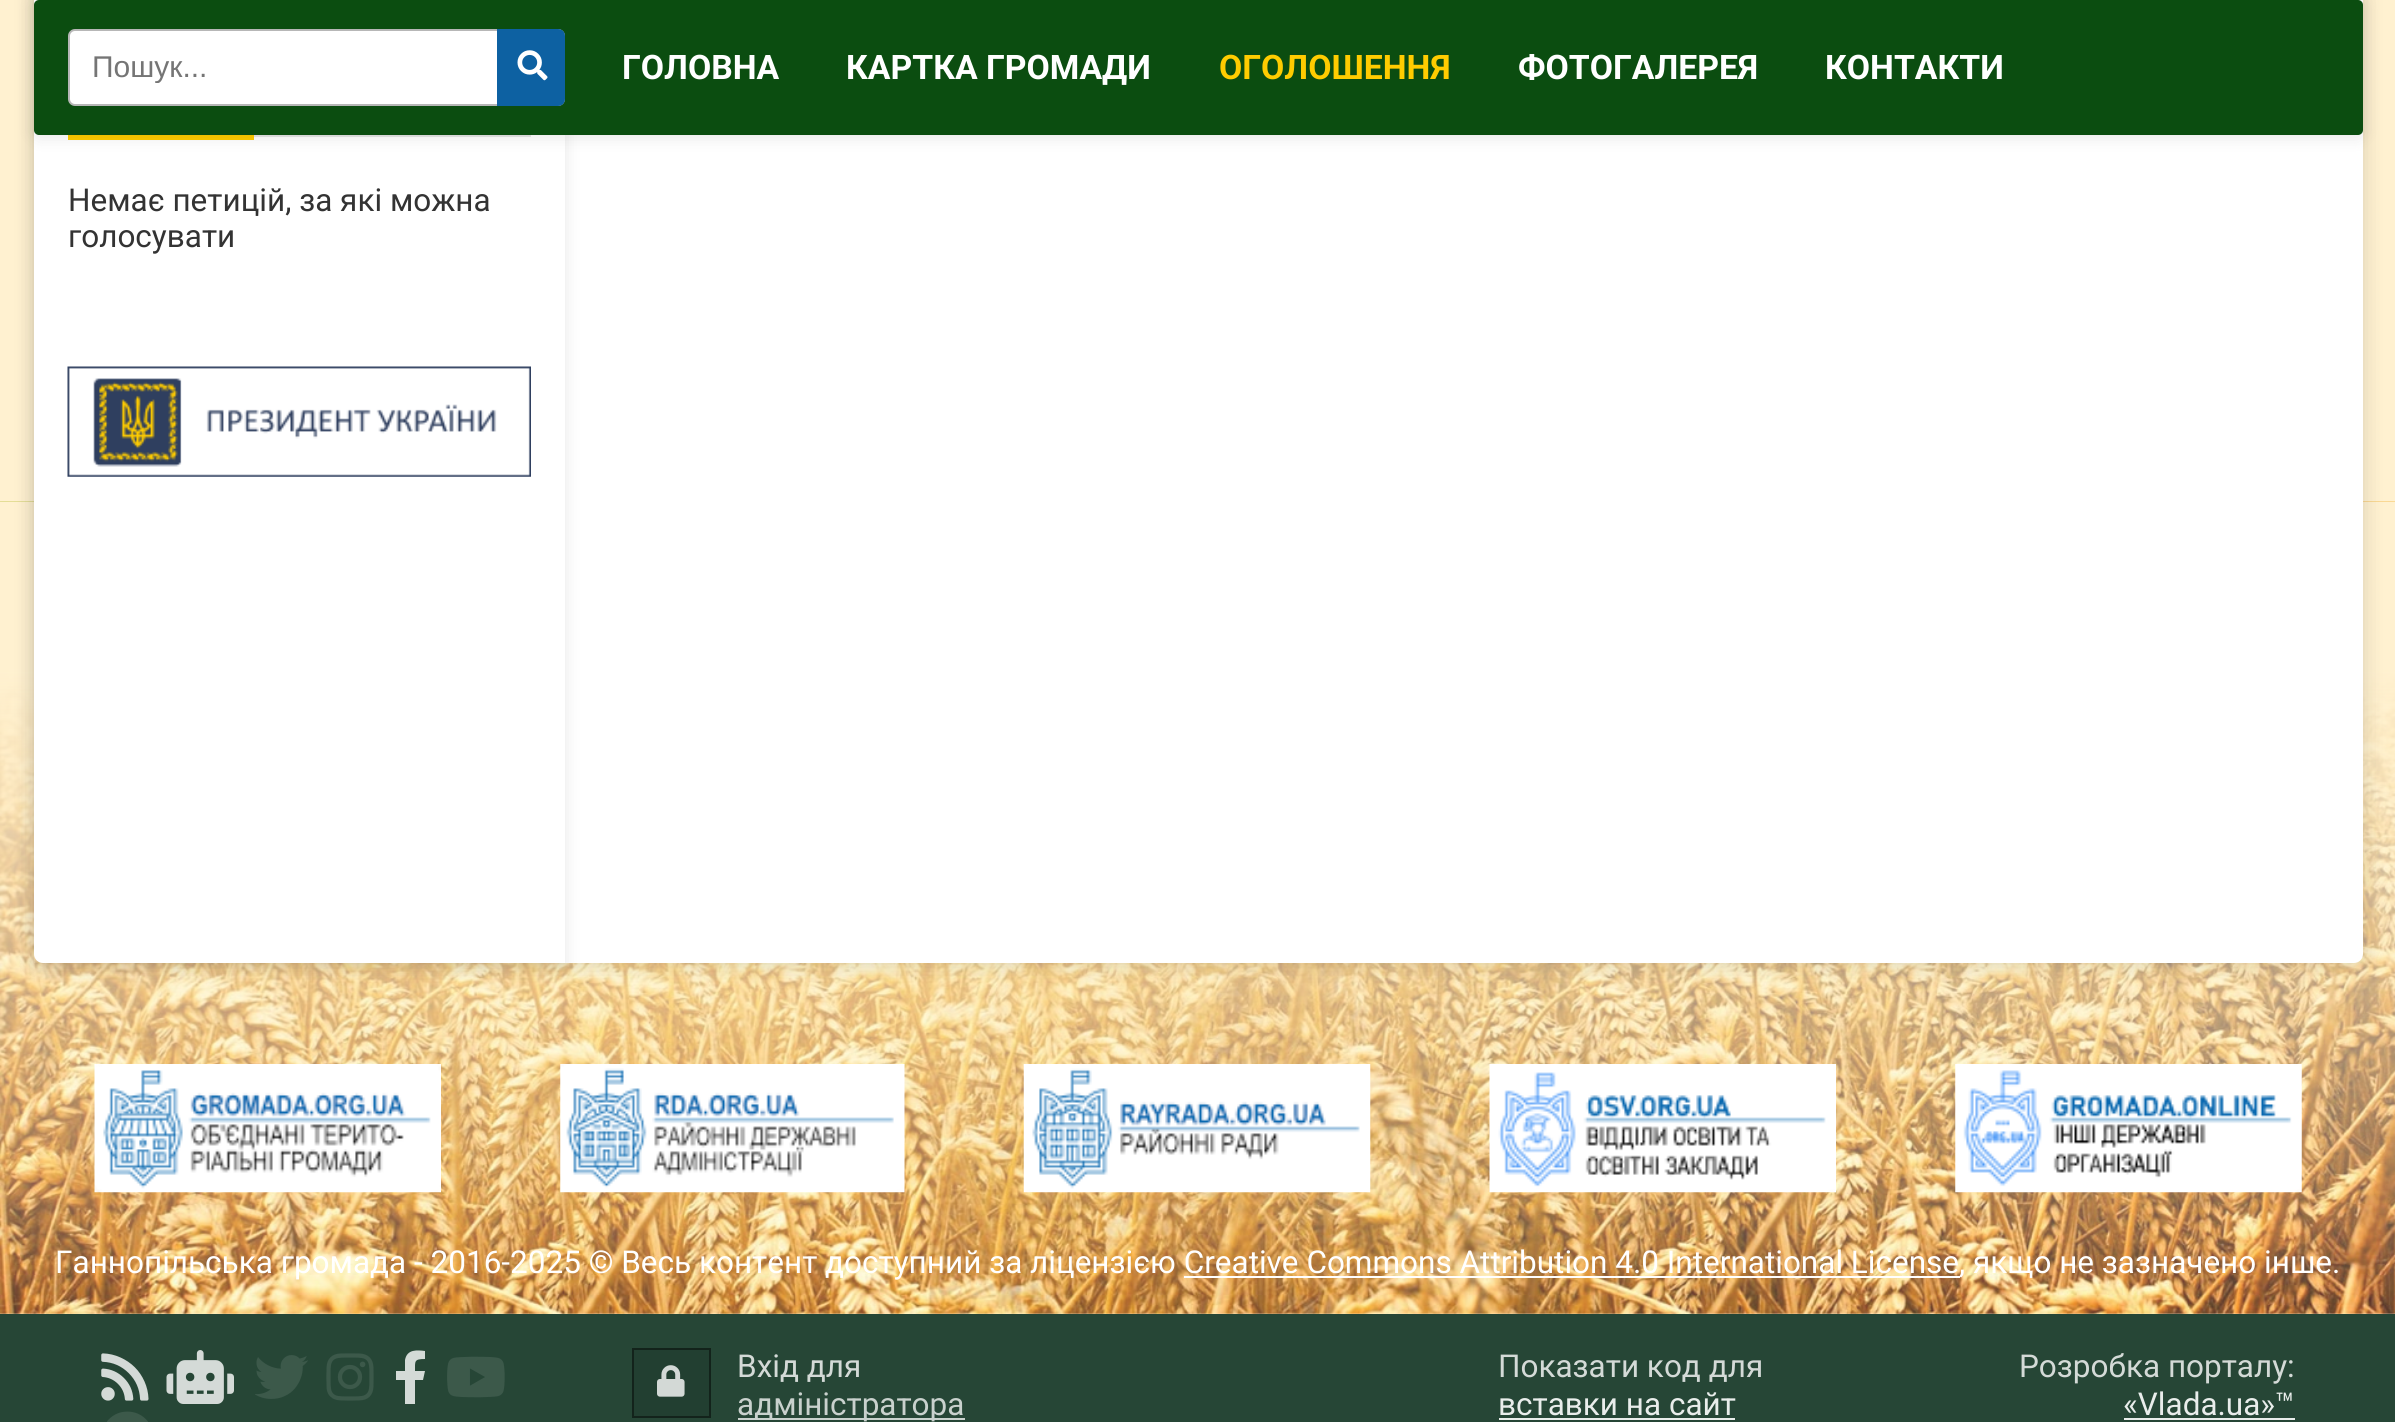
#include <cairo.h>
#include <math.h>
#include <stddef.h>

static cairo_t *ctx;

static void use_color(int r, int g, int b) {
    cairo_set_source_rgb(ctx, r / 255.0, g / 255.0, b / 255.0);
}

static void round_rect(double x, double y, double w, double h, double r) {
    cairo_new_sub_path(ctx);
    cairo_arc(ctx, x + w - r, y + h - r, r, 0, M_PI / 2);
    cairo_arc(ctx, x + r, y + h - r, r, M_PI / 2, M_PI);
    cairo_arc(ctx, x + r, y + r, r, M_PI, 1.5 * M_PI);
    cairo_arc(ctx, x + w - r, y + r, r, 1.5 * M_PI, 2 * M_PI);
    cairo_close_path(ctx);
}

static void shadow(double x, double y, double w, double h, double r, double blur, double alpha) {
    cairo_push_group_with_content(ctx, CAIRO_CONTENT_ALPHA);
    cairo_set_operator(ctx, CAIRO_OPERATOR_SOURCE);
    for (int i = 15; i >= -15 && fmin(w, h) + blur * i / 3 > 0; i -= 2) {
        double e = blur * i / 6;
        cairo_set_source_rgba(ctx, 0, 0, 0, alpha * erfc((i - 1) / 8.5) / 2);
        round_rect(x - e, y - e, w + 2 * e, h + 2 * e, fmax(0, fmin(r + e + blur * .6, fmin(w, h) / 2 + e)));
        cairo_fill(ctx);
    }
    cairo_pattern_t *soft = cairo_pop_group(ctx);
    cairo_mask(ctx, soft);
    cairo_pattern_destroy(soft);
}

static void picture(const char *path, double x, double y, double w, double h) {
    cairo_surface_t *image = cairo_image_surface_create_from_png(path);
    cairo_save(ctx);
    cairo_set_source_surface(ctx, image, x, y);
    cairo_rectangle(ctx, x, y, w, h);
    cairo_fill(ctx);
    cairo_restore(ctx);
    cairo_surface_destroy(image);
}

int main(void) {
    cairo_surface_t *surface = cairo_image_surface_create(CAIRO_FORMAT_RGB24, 2395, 1422);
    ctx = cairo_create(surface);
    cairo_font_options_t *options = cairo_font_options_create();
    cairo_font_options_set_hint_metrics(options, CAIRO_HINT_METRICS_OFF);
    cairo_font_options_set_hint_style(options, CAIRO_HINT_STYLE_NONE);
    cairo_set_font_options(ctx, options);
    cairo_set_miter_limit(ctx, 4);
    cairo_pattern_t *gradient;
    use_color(255, 255, 255);
    cairo_paint(ctx);
    gradient = cairo_pattern_create_linear(1198, -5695, 1198, 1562);
    cairo_pattern_add_color_stop_rgba(gradient, 0.12, 1, 1, 1, 1);
    cairo_pattern_add_color_stop_rgba(gradient, 0.25, 1, 0.945, 0.816, 1);
    cairo_set_source(ctx, gradient);
    cairo_pattern_destroy(gradient);
    cairo_rectangle(ctx, 0, 0, 2395, 1314);
    cairo_fill(ctx);
    picture("img3.png", 0, 501, 2395, 813);
    gradient = cairo_pattern_create_linear(1198, 502, 1198, 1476);
    cairo_pattern_add_color_stop_rgba(gradient, 0.17, 1, 0.945, 0.816, 1);
    cairo_pattern_add_color_stop_rgba(gradient, 1, 1, 0.945, 0.816, 0);
    cairo_set_source(ctx, gradient);
    cairo_pattern_destroy(gradient);
    cairo_rectangle(ctx, 0, 502, 2395, 812);
    cairo_fill(ctx);
    use_color(0, 0, 0);
    shadow(34, -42, 2329, 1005, 9, 11, 0.15);
    use_color(255, 255, 255);
    round_rect(34, -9, 2329, 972, 9);
    cairo_fill(ctx);
    cairo_save(ctx);
    cairo_set_fill_rule(ctx, CAIRO_FILL_RULE_EVEN_ODD);
    cairo_new_path(ctx);
    cairo_move_to(ctx, 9, 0);
    cairo_line_to(ctx, 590, 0);
    cairo_line_to(ctx, 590, 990);
    cairo_line_to(ctx, 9, 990);
    cairo_close_path(ctx);
    cairo_move_to(ctx, 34, -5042);
    cairo_line_to(ctx, 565, -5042);
    cairo_line_to(ctx, 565, 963);
    cairo_line_to(ctx, 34, 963);
    cairo_close_path(ctx);
    cairo_clip(ctx);
    use_color(0, 0, 0);
    shadow(34, -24, 531, 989, 0, 8, 0.1);
    cairo_restore(ctx);
    use_color(229, 229, 229);
    cairo_rectangle(ctx, 254, 135, 277, 2);
    cairo_fill(ctx);
    use_color(255, 204, 0);
    cairo_rectangle(ctx, 68, 135, 186, 5);
    cairo_fill(ctx);
    use_color(0, 0, 0);
    shadow(34, 2, 2329, 135, 5, 8, 0.1);
    use_color(11, 77, 16);
    round_rect(34, 0, 2329, 135, 5);
    cairo_fill(ctx);
    cairo_select_font_face(ctx, "Roboto", CAIRO_FONT_SLANT_NORMAL, CAIRO_FONT_WEIGHT_BOLD);
    cairo_set_font_size(ctx, 33.75);
    use_color(255, 255, 255);
    cairo_move_to(ctx, 622, 79);
    cairo_show_text(ctx, "ГОЛОВНА");
    cairo_move_to(ctx, 846, 79);
    cairo_show_text(ctx, "КАРТКА ГРОМАДИ");
    use_color(255, 204, 0);
    cairo_move_to(ctx, 1219, 79);
    cairo_show_text(ctx, "ОГОЛОШЕННЯ");
    use_color(255, 255, 255);
    cairo_move_to(ctx, 1518, 79);
    cairo_show_text(ctx, "ФОТОГАЛЕРЕЯ");
    cairo_move_to(ctx, 1825, 79);
    cairo_show_text(ctx, "КОНТАКТИ");
    cairo_select_font_face(ctx, "Roboto", CAIRO_FONT_SLANT_NORMAL, CAIRO_FONT_WEIGHT_NORMAL);
    cairo_set_font_size(ctx, 31.5);
    use_color(51, 51, 51);
    cairo_move_to(ctx, 68, 211);
    cairo_show_text(ctx, "Немає петицій, за які можна");
    cairo_move_to(ctx, 68, 247);
    cairo_show_text(ctx, "голосувати");
    picture("img1.png", 67, 366, 464, 111);
    use_color(255, 255, 255);
    round_rect(69, 30, 495, 75, 6);
    cairo_fill_preserve(ctx);
    use_color(183, 183, 183);
    cairo_stroke(ctx);
    cairo_save(ctx);
    cairo_rectangle(ctx, 92, 50, 381, 33);
    cairo_clip(ctx);
    cairo_select_font_face(ctx, "Liberation Sans", CAIRO_FONT_SLANT_NORMAL, CAIRO_FONT_WEIGHT_NORMAL);
    cairo_set_font_size(ctx, 30);
    use_color(117, 117, 117);
    cairo_move_to(ctx, 92, 77);
    cairo_show_text(ctx, "Пошук...");
    cairo_restore(ctx);
    use_color(13, 97, 162);
    cairo_new_path(ctx);
    cairo_move_to(ctx, 497, 29);
    cairo_line_to(ctx, 558, 29);
    cairo_curve_to(ctx, 562, 29, 565, 32, 565, 36);
    cairo_line_to(ctx, 565, 99);
    cairo_curve_to(ctx, 565, 103, 562, 106, 558, 106);
    cairo_line_to(ctx, 497, 106);
    cairo_close_path(ctx);
    cairo_fill(ctx);
    picture("img2.png", 517, 50, 31, 31);
    picture("img4.png", 94, 1064, 347, 129);
    picture("img5.png", 560, 1064, 345, 129);
    picture("img6.png", 1023, 1064, 348, 129);
    picture("img7.png", 1489, 1064, 347, 129);
    picture("img8.png", 1955, 1064, 347, 129);
    use_color(255, 255, 255);
    cairo_move_to(ctx, 55, 1273);
    cairo_show_text(ctx, "Ганнопільська громада - 2016-2025 © Весь контент доступний за ліцензією Creative Commons Attribution 4.0 International License");
    cairo_rectangle(ctx, 1184, 1276, 776, 2);
    cairo_fill(ctx);
    cairo_move_to(ctx, 1959, 1273);
    cairo_show_text(ctx, ", якщо не зазначено інше.");
    use_color(38, 70, 54);
    cairo_rectangle(ctx, 0, 1314, 2395, 108);
    cairo_fill(ctx);
    picture("img9.png", 101, 1353, 48, 48);
    picture("img10.png", 166, 1350, 68, 54);
    picture("img11.png", 255, 1355, 53, 44);
    picture("img12.png", 326, 1353, 48, 48);
    use_color(212, 218, 215);
    cairo_new_path(ctx);
    cairo_move_to(ctx, 423, 1380);
    cairo_line_to(ctx, 415, 1380);
    cairo_line_to(ctx, 415, 1404);
    cairo_line_to(ctx, 405, 1404);
    cairo_line_to(ctx, 405, 1380);
    cairo_line_to(ctx, 396, 1380);
    cairo_line_to(ctx, 396, 1371);
    cairo_line_to(ctx, 405, 1371);
    cairo_line_to(ctx, 405, 1360);
    cairo_curve_to(ctx, 407, 1349, 417, 1350, 425, 1351);
    cairo_line_to(ctx, 425, 1359);
    cairo_curve_to(ctx, 414, 1359, 415, 1361, 415, 1371);
    cairo_line_to(ctx, 425, 1371);
    cairo_close_path(ctx);
    cairo_fill(ctx);
    picture("img13.png", 447, 1356, 58, 42);
    picture("img14.png", 107, 1411, 41, 11);
    use_color(34, 63, 49);
    cairo_rectangle(ctx, 633, 1349, 77, 68);
    cairo_fill_preserve(ctx);
    use_color(19, 35, 27);
    cairo_stroke(ctx);
    picture("img15.png", 657, 1365, 28, 32);
    use_color(212, 218, 215);
    cairo_move_to(ctx, 737, 1377);
    cairo_show_text(ctx, "Вхід для");
    use_color(201, 209, 205);
    cairo_rectangle(ctx, 738, 1418, 227, 2);
    cairo_fill(ctx);
    cairo_move_to(ctx, 737, 1415);
    cairo_show_text(ctx, "адміністратора");
    use_color(212, 218, 215);
    cairo_move_to(ctx, 1498, 1377);
    cairo_show_text(ctx, "Показати код для");
    use_color(233, 237, 235);
    cairo_move_to(ctx, 1498, 1415);
    cairo_show_text(ctx, "вставки на сайт");
    cairo_rectangle(ctx, 1499, 1418, 236, 2);
    cairo_fill(ctx);
    use_color(212, 218, 215);
    cairo_move_to(ctx, 2019, 1377);
    cairo_show_text(ctx, "Розробка порталу:");
    use_color(233, 237, 235);
    cairo_move_to(ctx, 2123, 1415);
    cairo_show_text(ctx, "«Vlada.ua»™");
    cairo_rectangle(ctx, 2124, 1418, 171, 2);
    cairo_fill(ctx);
    cairo_surface_write_to_png(surface, "result.png");
    cairo_font_options_destroy(options);
    cairo_destroy(ctx);
    cairo_surface_destroy(surface);
    return 0;
}
